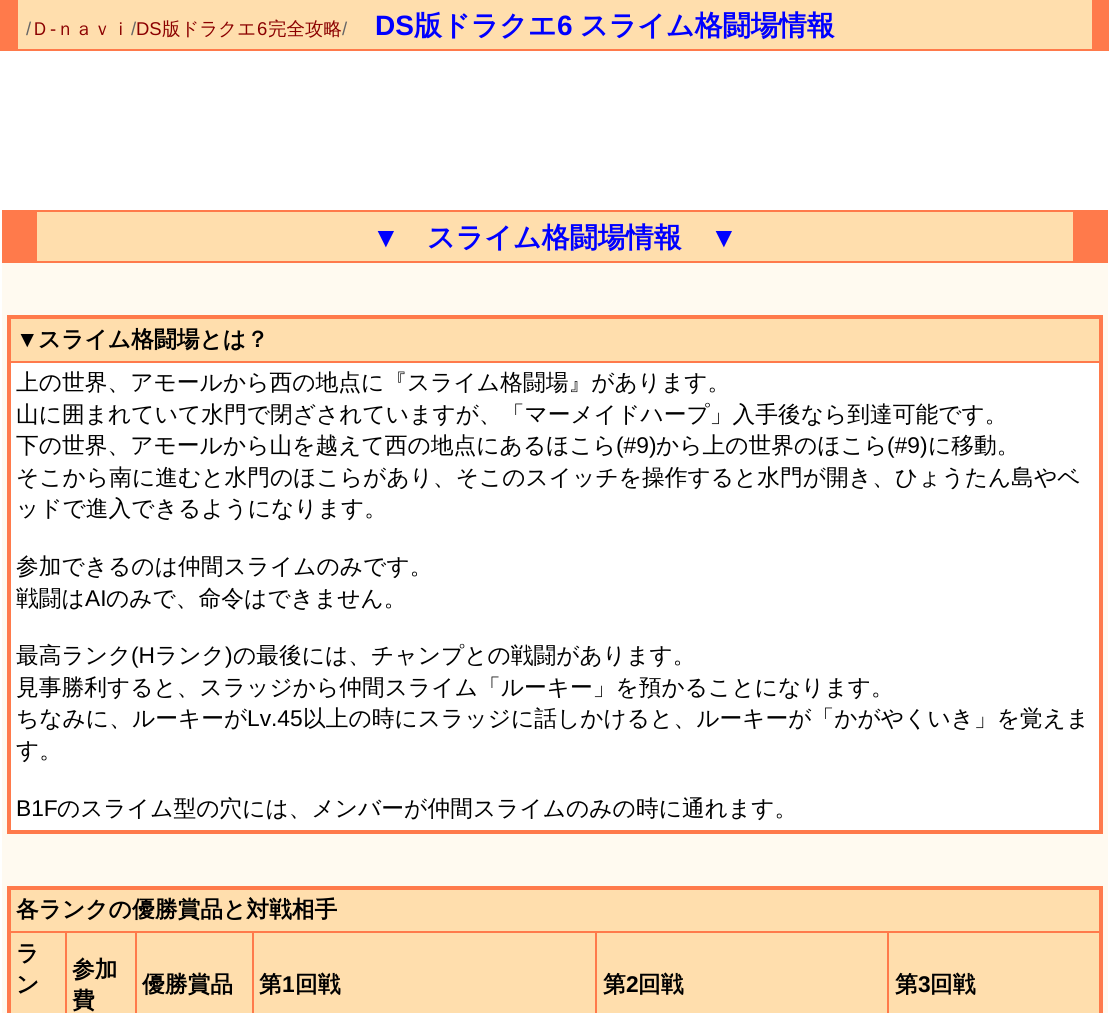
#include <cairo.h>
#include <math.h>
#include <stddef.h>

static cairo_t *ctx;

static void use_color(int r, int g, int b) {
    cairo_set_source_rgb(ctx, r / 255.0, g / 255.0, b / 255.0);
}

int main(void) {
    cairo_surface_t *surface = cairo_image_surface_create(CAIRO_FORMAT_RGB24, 1109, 1013);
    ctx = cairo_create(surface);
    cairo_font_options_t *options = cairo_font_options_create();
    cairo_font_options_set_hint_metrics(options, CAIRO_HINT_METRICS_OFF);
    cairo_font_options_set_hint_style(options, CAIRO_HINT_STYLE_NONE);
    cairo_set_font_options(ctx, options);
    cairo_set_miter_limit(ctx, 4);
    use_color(255, 255, 255);
    cairo_paint(ctx);
    use_color(255, 222, 173);
    cairo_rectangle(ctx, 18, 0, 1074, 49);
    cairo_fill(ctx);
    use_color(255, 122, 75);
    cairo_rectangle(ctx, 1092, 0, 17, 49);
    cairo_fill(ctx);
    cairo_rectangle(ctx, 18, 49, 1091, 2);
    cairo_fill(ctx);
    cairo_rectangle(ctx, 0, 0, 18, 51);
    cairo_fill(ctx);
    cairo_select_font_face(ctx, "Liberation Sans", CAIRO_FONT_SLANT_NORMAL, CAIRO_FONT_WEIGHT_NORMAL);
    cairo_set_font_size(ctx, 18.5);
    use_color(102, 102, 102);
    cairo_move_to(ctx, 26, 35);
    cairo_show_text(ctx, "/");
    cairo_select_font_face(ctx, "WenQuanYi Zen Hei Medium", CAIRO_FONT_SLANT_NORMAL, CAIRO_FONT_WEIGHT_NORMAL);
    use_color(139, 0, 0);
    cairo_move_to(ctx, 31, 35);
    cairo_show_text(ctx, "Ｄ");
    cairo_select_font_face(ctx, "Liberation Sans", CAIRO_FONT_SLANT_NORMAL, CAIRO_FONT_WEIGHT_NORMAL);
    cairo_move_to(ctx, 50, 35);
    cairo_show_text(ctx, "-");
    cairo_select_font_face(ctx, "WenQuanYi Zen Hei Medium", CAIRO_FONT_SLANT_NORMAL, CAIRO_FONT_WEIGHT_NORMAL);
    cairo_move_to(ctx, 56, 35);
    cairo_show_text(ctx, "ｎａｖｉ");
    cairo_select_font_face(ctx, "Liberation Sans", CAIRO_FONT_SLANT_NORMAL, CAIRO_FONT_WEIGHT_NORMAL);
    use_color(102, 102, 102);
    cairo_move_to(ctx, 131, 35);
    cairo_show_text(ctx, "/");
    use_color(139, 0, 0);
    cairo_move_to(ctx, 136, 35);
    cairo_show_text(ctx, "DS");
    cairo_select_font_face(ctx, "WenQuanYi Zen Hei Medium", CAIRO_FONT_SLANT_NORMAL, CAIRO_FONT_WEIGHT_NORMAL);
    cairo_move_to(ctx, 162, 35);
    cairo_show_text(ctx, "版ドラクエ");
    cairo_select_font_face(ctx, "Liberation Sans", CAIRO_FONT_SLANT_NORMAL, CAIRO_FONT_WEIGHT_NORMAL);
    cairo_move_to(ctx, 257, 35);
    cairo_show_text(ctx, "6");
    cairo_select_font_face(ctx, "WenQuanYi Zen Hei Medium", CAIRO_FONT_SLANT_NORMAL, CAIRO_FONT_WEIGHT_NORMAL);
    cairo_move_to(ctx, 268, 35);
    cairo_show_text(ctx, "完全攻略");
    cairo_select_font_face(ctx, "Liberation Sans", CAIRO_FONT_SLANT_NORMAL, CAIRO_FONT_WEIGHT_NORMAL);
    use_color(102, 102, 102);
    cairo_move_to(ctx, 342, 35);
    cairo_show_text(ctx, "/");
    cairo_select_font_face(ctx, "Liberation Sans", CAIRO_FONT_SLANT_NORMAL, CAIRO_FONT_WEIGHT_BOLD);
    cairo_set_font_size(ctx, 28);
    use_color(0, 0, 255);
    cairo_move_to(ctx, 375, 35);
    cairo_show_text(ctx, "DS");
    cairo_select_font_face(ctx, "WenQuanYi Zen Hei", CAIRO_FONT_SLANT_NORMAL, CAIRO_FONT_WEIGHT_BOLD);
    cairo_move_to(ctx, 414, 35);
    cairo_show_text(ctx, "版ドラクエ");
    cairo_select_font_face(ctx, "Liberation Sans", CAIRO_FONT_SLANT_NORMAL, CAIRO_FONT_WEIGHT_BOLD);
    cairo_move_to(ctx, 557, 35);
    cairo_show_text(ctx, "6");
    cairo_select_font_face(ctx, "WenQuanYi Zen Hei", CAIRO_FONT_SLANT_NORMAL, CAIRO_FONT_WEIGHT_BOLD);
    cairo_move_to(ctx, 580, 35);
    cairo_show_text(ctx, "スライム格闘場情報");
    use_color(255, 250, 240);
    cairo_rectangle(ctx, 2, 263, 1106, 750);
    cairo_fill(ctx);
    use_color(255, 222, 173);
    cairo_rectangle(ctx, 37, 212, 1036, 49);
    cairo_fill(ctx);
    use_color(255, 122, 75);
    cairo_rectangle(ctx, 37, 210, 1036, 2);
    cairo_fill(ctx);
    cairo_rectangle(ctx, 1073, 210, 35, 51);
    cairo_fill(ctx);
    cairo_rectangle(ctx, 37, 261, 1071, 2);
    cairo_fill(ctx);
    cairo_rectangle(ctx, 2, 210, 35, 53);
    cairo_fill(ctx);
    cairo_select_font_face(ctx, "Liberation Sans", CAIRO_FONT_SLANT_NORMAL, CAIRO_FONT_WEIGHT_BOLD);
    use_color(0, 0, 255);
    cairo_move_to(ctx, 372, 247);
    cairo_show_text(ctx, "▼");
    cairo_select_font_face(ctx, "WenQuanYi Zen Hei", CAIRO_FONT_SLANT_NORMAL, CAIRO_FONT_WEIGHT_BOLD);
    cairo_move_to(ctx, 427, 247);
    cairo_show_text(ctx, "スライム格闘場情報");
    cairo_select_font_face(ctx, "Liberation Sans", CAIRO_FONT_SLANT_NORMAL, CAIRO_FONT_WEIGHT_BOLD);
    cairo_move_to(ctx, 710, 247);
    cairo_show_text(ctx, "▼");
    use_color(255, 255, 255);
    cairo_rectangle(ctx, 11, 363, 1088, 467);
    cairo_fill(ctx);
    use_color(255, 122, 75);
    cairo_rectangle(ctx, 7, 315, 1096, 4);
    cairo_fill(ctx);
    cairo_rectangle(ctx, 9, 361, 1094, 2);
    cairo_fill(ctx);
    cairo_rectangle(ctx, 1099, 315, 4, 518);
    cairo_fill(ctx);
    cairo_rectangle(ctx, 7, 830, 1096, 4);
    cairo_fill(ctx);
    cairo_rectangle(ctx, 7, 315, 4, 518);
    cairo_fill(ctx);
    use_color(255, 222, 173);
    cairo_rectangle(ctx, 11, 319, 1088, 42);
    cairo_fill(ctx);
    cairo_set_font_size(ctx, 22.75);
    use_color(0, 0, 0);
    cairo_move_to(ctx, 16, 347);
    cairo_show_text(ctx, "▼");
    cairo_select_font_face(ctx, "WenQuanYi Zen Hei", CAIRO_FONT_SLANT_NORMAL, CAIRO_FONT_WEIGHT_BOLD);
    cairo_move_to(ctx, 38, 347);
    cairo_show_text(ctx, "スライム格闘場とは？");
    cairo_select_font_face(ctx, "WenQuanYi Zen Hei Medium", CAIRO_FONT_SLANT_NORMAL, CAIRO_FONT_WEIGHT_NORMAL);
    cairo_move_to(ctx, 16, 390);
    cairo_show_text(ctx, "上の世界、アモールから西の地点に『スライム格闘場』があります。");
    cairo_move_to(ctx, 16, 422);
    cairo_show_text(ctx, "山に囲まれていて水門で閉ざされていますが、「マーメイドハープ」入手後なら到達可能です。");
    cairo_move_to(ctx, 16, 453);
    cairo_show_text(ctx, "下の世界、アモールから山を越えて西の地点にあるほこら");
    cairo_select_font_face(ctx, "Liberation Sans", CAIRO_FONT_SLANT_NORMAL, CAIRO_FONT_WEIGHT_NORMAL);
    cairo_move_to(ctx, 616, 453);
    cairo_show_text(ctx, "(#9)");
    cairo_select_font_face(ctx, "WenQuanYi Zen Hei Medium", CAIRO_FONT_SLANT_NORMAL, CAIRO_FONT_WEIGHT_NORMAL);
    cairo_move_to(ctx, 656, 453);
    cairo_show_text(ctx, "から上の世界のほこら");
    cairo_select_font_face(ctx, "Liberation Sans", CAIRO_FONT_SLANT_NORMAL, CAIRO_FONT_WEIGHT_NORMAL);
    cairo_move_to(ctx, 887, 453);
    cairo_show_text(ctx, "(#9)");
    cairo_select_font_face(ctx, "WenQuanYi Zen Hei Medium", CAIRO_FONT_SLANT_NORMAL, CAIRO_FONT_WEIGHT_NORMAL);
    cairo_move_to(ctx, 928, 453);
    cairo_show_text(ctx, "に移動。");
    cairo_move_to(ctx, 16, 485);
    cairo_show_text(ctx, "そこから南に進むと水門のほこらがあり、そこのスイッチを操作すると水門が開き、ひょうたん島やベ");
    cairo_move_to(ctx, 16, 516);
    cairo_show_text(ctx, "ッドで進入できるようになります。");
    cairo_move_to(ctx, 16, 574);
    cairo_show_text(ctx, "参加できるのは仲間スライムのみです。");
    cairo_move_to(ctx, 16, 606);
    cairo_show_text(ctx, "戦闘は");
    cairo_select_font_face(ctx, "Liberation Sans", CAIRO_FONT_SLANT_NORMAL, CAIRO_FONT_WEIGHT_NORMAL);
    cairo_move_to(ctx, 85, 606);
    cairo_show_text(ctx, "AI");
    cairo_select_font_face(ctx, "WenQuanYi Zen Hei Medium", CAIRO_FONT_SLANT_NORMAL, CAIRO_FONT_WEIGHT_NORMAL);
    cairo_move_to(ctx, 106, 606);
    cairo_show_text(ctx, "のみで、命令はできません。");
    cairo_move_to(ctx, 16, 663);
    cairo_show_text(ctx, "最高ランク");
    cairo_select_font_face(ctx, "Liberation Sans", CAIRO_FONT_SLANT_NORMAL, CAIRO_FONT_WEIGHT_NORMAL);
    cairo_move_to(ctx, 131, 663);
    cairo_show_text(ctx, "(H");
    cairo_select_font_face(ctx, "WenQuanYi Zen Hei Medium", CAIRO_FONT_SLANT_NORMAL, CAIRO_FONT_WEIGHT_NORMAL);
    cairo_move_to(ctx, 155, 663);
    cairo_show_text(ctx, "ランク");
    cairo_select_font_face(ctx, "Liberation Sans", CAIRO_FONT_SLANT_NORMAL, CAIRO_FONT_WEIGHT_NORMAL);
    cairo_move_to(ctx, 225, 663);
    cairo_show_text(ctx, ")");
    cairo_select_font_face(ctx, "WenQuanYi Zen Hei Medium", CAIRO_FONT_SLANT_NORMAL, CAIRO_FONT_WEIGHT_NORMAL);
    cairo_move_to(ctx, 233, 663);
    cairo_show_text(ctx, "の最後には、チャンプとの戦闘があります。");
    cairo_move_to(ctx, 16, 695);
    cairo_show_text(ctx, "見事勝利すると、スラッジから仲間スライム「ルーキー」を預かることになります。");
    cairo_move_to(ctx, 16, 726);
    cairo_show_text(ctx, "ちなみに、ルーキーが");
    cairo_select_font_face(ctx, "Liberation Sans", CAIRO_FONT_SLANT_NORMAL, CAIRO_FONT_WEIGHT_NORMAL);
    cairo_move_to(ctx, 247, 726);
    cairo_show_text(ctx, "Lv.45");
    cairo_select_font_face(ctx, "WenQuanYi Zen Hei Medium", CAIRO_FONT_SLANT_NORMAL, CAIRO_FONT_WEIGHT_NORMAL);
    cairo_move_to(ctx, 303, 726);
    cairo_show_text(ctx, "以上の時にスラッジに話しかけると、ルーキーが「かがやくいき」を覚えま");
    cairo_move_to(ctx, 16, 758);
    cairo_show_text(ctx, "す。");
    cairo_select_font_face(ctx, "Liberation Sans", CAIRO_FONT_SLANT_NORMAL, CAIRO_FONT_WEIGHT_NORMAL);
    cairo_move_to(ctx, 16, 816);
    cairo_show_text(ctx, "B1F");
    cairo_select_font_face(ctx, "WenQuanYi Zen Hei Medium", CAIRO_FONT_SLANT_NORMAL, CAIRO_FONT_WEIGHT_NORMAL);
    cairo_move_to(ctx, 57, 816);
    cairo_show_text(ctx, "のスライム型の穴には、メンバーが仲間スライムのみの時に通れます。");
    use_color(255, 122, 75);
    cairo_rectangle(ctx, 7, 886, 1096, 4);
    cairo_fill(ctx);
    cairo_rectangle(ctx, 887, 931, 216, 2);
    cairo_fill(ctx);
    cairo_rectangle(ctx, 1099, 886, 4, 127);
    cairo_fill(ctx);
    cairo_rectangle(ctx, 887, 931, 2, 82);
    cairo_fill(ctx);
    cairo_rectangle(ctx, 595, 931, 294, 2);
    cairo_fill(ctx);
    cairo_rectangle(ctx, 595, 931, 2, 82);
    cairo_fill(ctx);
    cairo_rectangle(ctx, 252, 931, 345, 2);
    cairo_fill(ctx);
    cairo_rectangle(ctx, 252, 931, 2, 82);
    cairo_fill(ctx);
    cairo_rectangle(ctx, 135, 931, 119, 2);
    cairo_fill(ctx);
    cairo_rectangle(ctx, 135, 931, 2, 82);
    cairo_fill(ctx);
    cairo_rectangle(ctx, 65, 931, 72, 2);
    cairo_fill(ctx);
    cairo_rectangle(ctx, 65, 931, 2, 82);
    cairo_fill(ctx);
    cairo_rectangle(ctx, 9, 931, 58, 2);
    cairo_fill(ctx);
    cairo_rectangle(ctx, 7, 886, 4, 127);
    cairo_fill(ctx);
    use_color(255, 222, 173);
    cairo_rectangle(ctx, 11, 890, 1088, 41);
    cairo_fill(ctx);
    cairo_select_font_face(ctx, "WenQuanYi Zen Hei", CAIRO_FONT_SLANT_NORMAL, CAIRO_FONT_WEIGHT_BOLD);
    use_color(0, 0, 0);
    cairo_move_to(ctx, 16, 917);
    cairo_show_text(ctx, "各ランクの優勝賞品と対戦相手");
    use_color(255, 222, 173);
    cairo_rectangle(ctx, 11, 933, 54, 80);
    cairo_fill(ctx);
    use_color(0, 0, 0);
    cairo_move_to(ctx, 16, 961);
    cairo_show_text(ctx, "ラ");
    cairo_move_to(ctx, 16, 992);
    cairo_show_text(ctx, "ン");
    use_color(255, 222, 173);
    cairo_rectangle(ctx, 67, 933, 68, 80);
    cairo_fill(ctx);
    use_color(0, 0, 0);
    cairo_move_to(ctx, 72, 977);
    cairo_show_text(ctx, "参加");
    cairo_move_to(ctx, 72, 1008);
    cairo_show_text(ctx, "費");
    use_color(255, 222, 173);
    cairo_rectangle(ctx, 137, 933, 115, 80);
    cairo_fill(ctx);
    use_color(0, 0, 0);
    cairo_move_to(ctx, 142, 992);
    cairo_show_text(ctx, "優勝賞品");
    use_color(255, 222, 173);
    cairo_rectangle(ctx, 254, 933, 341, 80);
    cairo_fill(ctx);
    use_color(0, 0, 0);
    cairo_move_to(ctx, 259, 992);
    cairo_show_text(ctx, "第");
    cairo_select_font_face(ctx, "Liberation Sans", CAIRO_FONT_SLANT_NORMAL, CAIRO_FONT_WEIGHT_BOLD);
    cairo_move_to(ctx, 282, 992);
    cairo_show_text(ctx, "1");
    cairo_select_font_face(ctx, "WenQuanYi Zen Hei", CAIRO_FONT_SLANT_NORMAL, CAIRO_FONT_WEIGHT_BOLD);
    cairo_move_to(ctx, 295, 992);
    cairo_show_text(ctx, "回戦");
    use_color(255, 222, 173);
    cairo_rectangle(ctx, 597, 933, 290, 80);
    cairo_fill(ctx);
    use_color(0, 0, 0);
    cairo_move_to(ctx, 603, 992);
    cairo_show_text(ctx, "第");
    cairo_select_font_face(ctx, "Liberation Sans", CAIRO_FONT_SLANT_NORMAL, CAIRO_FONT_WEIGHT_BOLD);
    cairo_move_to(ctx, 626, 992);
    cairo_show_text(ctx, "2");
    cairo_select_font_face(ctx, "WenQuanYi Zen Hei", CAIRO_FONT_SLANT_NORMAL, CAIRO_FONT_WEIGHT_BOLD);
    cairo_move_to(ctx, 638, 992);
    cairo_show_text(ctx, "回戦");
    use_color(255, 222, 173);
    cairo_rectangle(ctx, 889, 933, 210, 80);
    cairo_fill(ctx);
    use_color(0, 0, 0);
    cairo_move_to(ctx, 895, 992);
    cairo_show_text(ctx, "第");
    cairo_select_font_face(ctx, "Liberation Sans", CAIRO_FONT_SLANT_NORMAL, CAIRO_FONT_WEIGHT_BOLD);
    cairo_move_to(ctx, 918, 992);
    cairo_show_text(ctx, "3");
    cairo_select_font_face(ctx, "WenQuanYi Zen Hei", CAIRO_FONT_SLANT_NORMAL, CAIRO_FONT_WEIGHT_BOLD);
    cairo_move_to(ctx, 930, 992);
    cairo_show_text(ctx, "回戦");
    cairo_surface_write_to_png(surface, "result.png");
    cairo_font_options_destroy(options);
    cairo_destroy(ctx);
    cairo_surface_destroy(surface);
    return 0;
}
